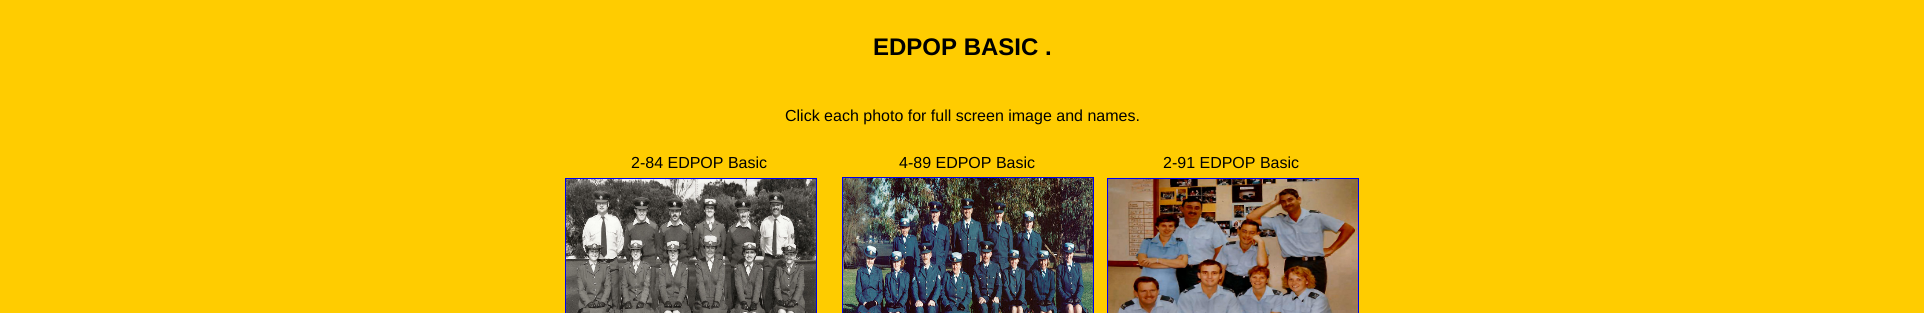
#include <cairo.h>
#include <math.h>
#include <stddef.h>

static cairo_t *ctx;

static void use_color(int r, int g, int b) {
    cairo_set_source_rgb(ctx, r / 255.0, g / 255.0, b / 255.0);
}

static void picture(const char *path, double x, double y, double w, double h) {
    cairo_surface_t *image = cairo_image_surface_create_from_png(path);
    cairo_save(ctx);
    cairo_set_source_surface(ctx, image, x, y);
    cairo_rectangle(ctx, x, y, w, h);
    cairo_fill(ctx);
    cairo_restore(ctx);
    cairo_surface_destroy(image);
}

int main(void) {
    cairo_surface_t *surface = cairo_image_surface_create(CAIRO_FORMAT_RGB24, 1924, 313);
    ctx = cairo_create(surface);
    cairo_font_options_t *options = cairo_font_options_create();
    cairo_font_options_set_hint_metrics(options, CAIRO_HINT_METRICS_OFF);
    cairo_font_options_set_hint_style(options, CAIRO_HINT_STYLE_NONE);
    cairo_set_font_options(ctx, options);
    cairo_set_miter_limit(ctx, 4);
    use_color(255, 204, 0);
    cairo_paint(ctx);
    cairo_select_font_face(ctx, "Liberation Sans", CAIRO_FONT_SLANT_NORMAL, CAIRO_FONT_WEIGHT_BOLD);
    cairo_set_font_size(ctx, 24);
    use_color(0, 0, 0);
    cairo_move_to(ctx, 873, 55);
    cairo_show_text(ctx, "EDPOP BASIC .");
    cairo_select_font_face(ctx, "Liberation Sans", CAIRO_FONT_SLANT_NORMAL, CAIRO_FONT_WEIGHT_NORMAL);
    cairo_set_font_size(ctx, 16);
    cairo_move_to(ctx, 785, 121);
    cairo_show_text(ctx, "Click each photo for full screen image and names.");
    cairo_move_to(ctx, 631, 168);
    cairo_show_text(ctx, "2-84 EDPOP Basic");
    cairo_move_to(ctx, 899, 168);
    cairo_show_text(ctx, "4-89 EDPOP Basic");
    cairo_move_to(ctx, 1163, 168);
    cairo_show_text(ctx, "2-91 EDPOP Basic");
    cairo_rectangle(ctx, 565.5, 178.5, 251, 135);
    use_color(0, 0, 238);
    cairo_set_line_width(ctx, 1);
    cairo_stroke(ctx);
    picture("img1.png", 566, 179, 250, 134);
    cairo_rectangle(ctx, 842.5, 177.5, 251, 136);
    cairo_stroke(ctx);
    picture("img2.png", 843, 178, 250, 135);
    cairo_rectangle(ctx, 1107.5, 178.5, 251, 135);
    cairo_stroke(ctx);
    picture("img3.png", 1108, 179, 250, 134);
    cairo_surface_write_to_png(surface, "result.png");
    cairo_font_options_destroy(options);
    cairo_destroy(ctx);
    cairo_surface_destroy(surface);
    return 0;
}
